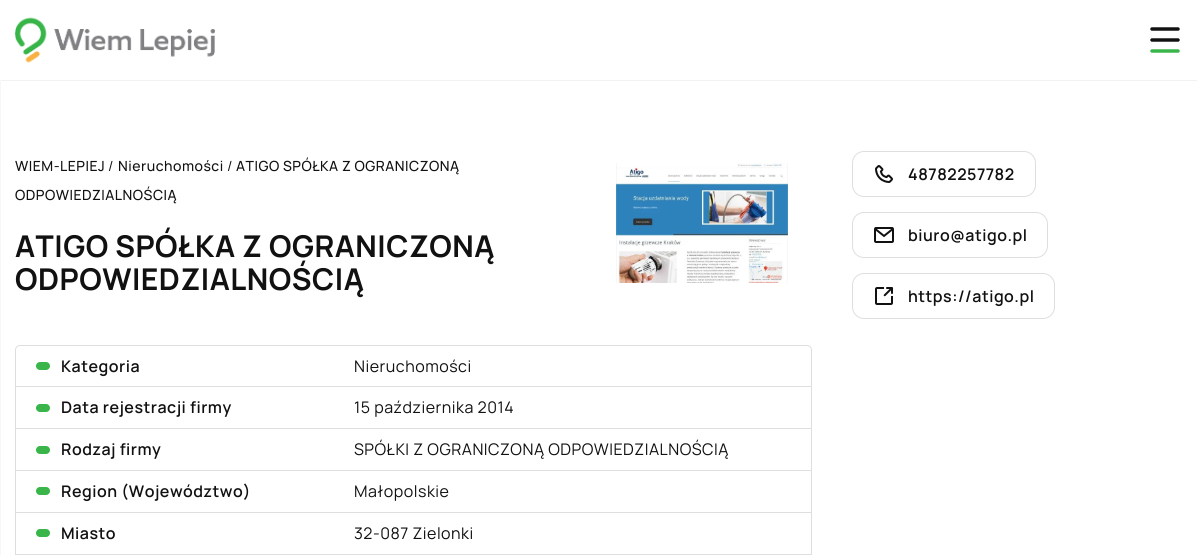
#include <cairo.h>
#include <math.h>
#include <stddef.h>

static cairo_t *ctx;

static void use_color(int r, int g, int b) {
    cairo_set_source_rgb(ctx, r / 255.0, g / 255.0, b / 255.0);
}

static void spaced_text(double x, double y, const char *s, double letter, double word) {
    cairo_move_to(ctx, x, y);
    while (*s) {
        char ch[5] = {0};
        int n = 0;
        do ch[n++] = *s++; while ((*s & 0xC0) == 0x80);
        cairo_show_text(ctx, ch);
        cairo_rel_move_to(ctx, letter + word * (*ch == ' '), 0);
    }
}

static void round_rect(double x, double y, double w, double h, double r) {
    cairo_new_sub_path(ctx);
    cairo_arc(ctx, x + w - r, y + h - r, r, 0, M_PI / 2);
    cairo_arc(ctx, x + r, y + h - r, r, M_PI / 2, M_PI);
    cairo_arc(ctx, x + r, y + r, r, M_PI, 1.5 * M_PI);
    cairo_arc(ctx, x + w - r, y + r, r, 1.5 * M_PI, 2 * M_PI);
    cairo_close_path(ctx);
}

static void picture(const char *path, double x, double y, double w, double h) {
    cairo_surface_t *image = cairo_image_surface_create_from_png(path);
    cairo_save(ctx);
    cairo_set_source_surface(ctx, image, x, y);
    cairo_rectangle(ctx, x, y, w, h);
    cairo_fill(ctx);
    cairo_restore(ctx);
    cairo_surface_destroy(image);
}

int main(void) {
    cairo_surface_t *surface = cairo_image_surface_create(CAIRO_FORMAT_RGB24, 1197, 555);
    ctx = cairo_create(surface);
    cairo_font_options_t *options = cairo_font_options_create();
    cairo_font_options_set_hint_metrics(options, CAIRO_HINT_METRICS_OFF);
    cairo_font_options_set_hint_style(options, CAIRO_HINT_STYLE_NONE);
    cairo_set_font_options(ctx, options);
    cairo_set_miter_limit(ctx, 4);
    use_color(255, 255, 255);
    cairo_paint(ctx);
    use_color(242, 242, 242);
    cairo_rectangle(ctx, 0, 80, 1197, 1);
    cairo_fill(ctx);
    picture("img1.png", 15, 17, 200, 46);
    cairo_new_path(ctx);
    cairo_move_to(ctx, 1152, 29);
    cairo_line_to(ctx, 1178, 29);
    cairo_move_to(ctx, 1152, 40);
    cairo_line_to(ctx, 1178, 40);
    use_color(17, 17, 17);
    cairo_set_line_width(ctx, 3.5);
    cairo_set_line_cap(ctx, CAIRO_LINE_CAP_ROUND);
    cairo_stroke(ctx);
    cairo_new_path(ctx);
    cairo_move_to(ctx, 1178, 51);
    cairo_line_to(ctx, 1152, 51);
    use_color(57, 181, 74);
    cairo_stroke(ctx);
    use_color(247, 247, 247);
    cairo_rectangle(ctx, 0, 80, 1, 475);
    cairo_fill(ctx);
    cairo_select_font_face(ctx, "Manrope Medium", CAIRO_FONT_SLANT_NORMAL, CAIRO_FONT_WEIGHT_NORMAL);
    cairo_set_font_size(ctx, 14);
    use_color(17, 17, 17);
    spaced_text(236, 171, "ATIGO SPÓŁKA Z OGRANICZONĄ", 0.5, 0);
    spaced_text(15, 200, "ODPOWIEDZIALNOŚCIĄ", 0.5, 0);
    spaced_text(15, 171, "WIEM-LEPIEJ", 0.5, 0);
    cairo_select_font_face(ctx, "Manrope", CAIRO_FONT_SLANT_NORMAL, CAIRO_FONT_WEIGHT_NORMAL);
    spaced_text(108, 171, "/", 0.5, 0);
    cairo_select_font_face(ctx, "Manrope Medium", CAIRO_FONT_SLANT_NORMAL, CAIRO_FONT_WEIGHT_NORMAL);
    spaced_text(118, 171, "Nieruchomości", 0.5, 0);
    cairo_select_font_face(ctx, "Manrope", CAIRO_FONT_SLANT_NORMAL, CAIRO_FONT_WEIGHT_NORMAL);
    spaced_text(227, 171, "/", 0.5, 0);
    cairo_select_font_face(ctx, "Manrope", CAIRO_FONT_SLANT_NORMAL, CAIRO_FONT_WEIGHT_BOLD);
    cairo_set_font_size(ctx, 30);
    spaced_text(15, 257, "ATIGO SPÓŁKA Z OGRANICZONĄ", 0.5, 0);
    spaced_text(15, 290, "ODPOWIEDZIALNOŚCIĄ", 0.5, 0);
    picture("img2.png", 616, 163, 172, 120);
    round_rect(15.5, 345.5, 796, 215, 4.5);
    use_color(222, 222, 222);
    cairo_set_line_width(ctx, 1);
    cairo_set_line_cap(ctx, CAIRO_LINE_CAP_BUTT);
    cairo_stroke(ctx);
    cairo_rectangle(ctx, 16, 386, 795, 1);
    cairo_fill(ctx);
    use_color(57, 181, 74);
    round_rect(36, 362, 14, 8, 4);
    cairo_fill(ctx);
    cairo_select_font_face(ctx, "Manrope SemiBold", CAIRO_FONT_SLANT_NORMAL, CAIRO_FONT_WEIGHT_NORMAL);
    cairo_set_font_size(ctx, 16);
    use_color(17, 17, 17);
    spaced_text(61, 372, "Kategoria", 0.5, 0);
    cairo_select_font_face(ctx, "Manrope", CAIRO_FONT_SLANT_NORMAL, CAIRO_FONT_WEIGHT_NORMAL);
    spaced_text(354, 372, "Nieruchomości", 0.5, 0);
    use_color(222, 222, 222);
    cairo_rectangle(ctx, 16, 428, 795, 1);
    cairo_fill(ctx);
    use_color(57, 181, 74);
    round_rect(36, 404, 14, 8, 4);
    cairo_fill(ctx);
    cairo_select_font_face(ctx, "Manrope SemiBold", CAIRO_FONT_SLANT_NORMAL, CAIRO_FONT_WEIGHT_NORMAL);
    use_color(17, 17, 17);
    spaced_text(61, 413, "Data rejestracji firmy", 0.5, 0);
    cairo_select_font_face(ctx, "Manrope", CAIRO_FONT_SLANT_NORMAL, CAIRO_FONT_WEIGHT_NORMAL);
    spaced_text(354, 413, "15 października 2014", 0.5, 0);
    use_color(222, 222, 222);
    cairo_rectangle(ctx, 16, 470, 795, 1);
    cairo_fill(ctx);
    use_color(57, 181, 74);
    round_rect(36, 446, 14, 8, 4);
    cairo_fill(ctx);
    cairo_select_font_face(ctx, "Manrope SemiBold", CAIRO_FONT_SLANT_NORMAL, CAIRO_FONT_WEIGHT_NORMAL);
    use_color(17, 17, 17);
    spaced_text(61, 455, "Rodzaj firmy", 0.5, 0);
    cairo_select_font_face(ctx, "Manrope", CAIRO_FONT_SLANT_NORMAL, CAIRO_FONT_WEIGHT_NORMAL);
    spaced_text(354, 455, "SPÓŁKI Z OGRANICZONĄ ODPOWIEDZIALNOŚCIĄ", 0.5, 0);
    use_color(222, 222, 222);
    cairo_rectangle(ctx, 16, 512, 795, 1);
    cairo_fill(ctx);
    use_color(57, 181, 74);
    round_rect(36, 487, 14, 8, 4);
    cairo_fill(ctx);
    cairo_select_font_face(ctx, "Manrope SemiBold", CAIRO_FONT_SLANT_NORMAL, CAIRO_FONT_WEIGHT_NORMAL);
    use_color(17, 17, 17);
    spaced_text(61, 497, "Region (Województwo)", 0.5, 0);
    cairo_select_font_face(ctx, "Manrope", CAIRO_FONT_SLANT_NORMAL, CAIRO_FONT_WEIGHT_NORMAL);
    spaced_text(354, 497, "Małopolskie", 0.5, 0);
    use_color(222, 222, 222);
    cairo_rectangle(ctx, 16, 554, 795, 1);
    cairo_fill(ctx);
    use_color(57, 181, 74);
    round_rect(36, 529, 14, 8, 4);
    cairo_fill(ctx);
    cairo_select_font_face(ctx, "Manrope SemiBold", CAIRO_FONT_SLANT_NORMAL, CAIRO_FONT_WEIGHT_NORMAL);
    use_color(17, 17, 17);
    spaced_text(61, 539, "Miasto", 0.5, 0);
    cairo_select_font_face(ctx, "Manrope", CAIRO_FONT_SLANT_NORMAL, CAIRO_FONT_WEIGHT_NORMAL);
    spaced_text(354, 539, "32-087 Zielonki", 0.5, 0);
    picture("img3.png", 875, 165, 18, 18);
    round_rect(852.5, 151.5, 183, 45, 11.5);
    use_color(222, 222, 222);
    cairo_stroke(ctx);
    cairo_select_font_face(ctx, "Manrope SemiBold", CAIRO_FONT_SLANT_NORMAL, CAIRO_FONT_WEIGHT_NORMAL);
    use_color(17, 17, 17);
    spaced_text(908, 180, "48782257782", 0.5, 0);
    picture("img4.png", 874, 227, 20, 16);
    round_rect(852.5, 212.5, 195, 45, 11.5);
    use_color(222, 222, 222);
    cairo_stroke(ctx);
    use_color(17, 17, 17);
    spaced_text(908, 241, "biuro@atigo.pl", 0.5, 0);
    picture("img5.png", 875, 287, 18, 18);
    round_rect(852.5, 273.5, 202, 45, 11.5);
    use_color(222, 222, 222);
    cairo_stroke(ctx);
    use_color(17, 17, 17);
    spaced_text(908, 302, "https://atigo.pl", 0.5, 0);
    cairo_surface_write_to_png(surface, "result.png");
    cairo_font_options_destroy(options);
    cairo_destroy(ctx);
    cairo_surface_destroy(surface);
    return 0;
}
